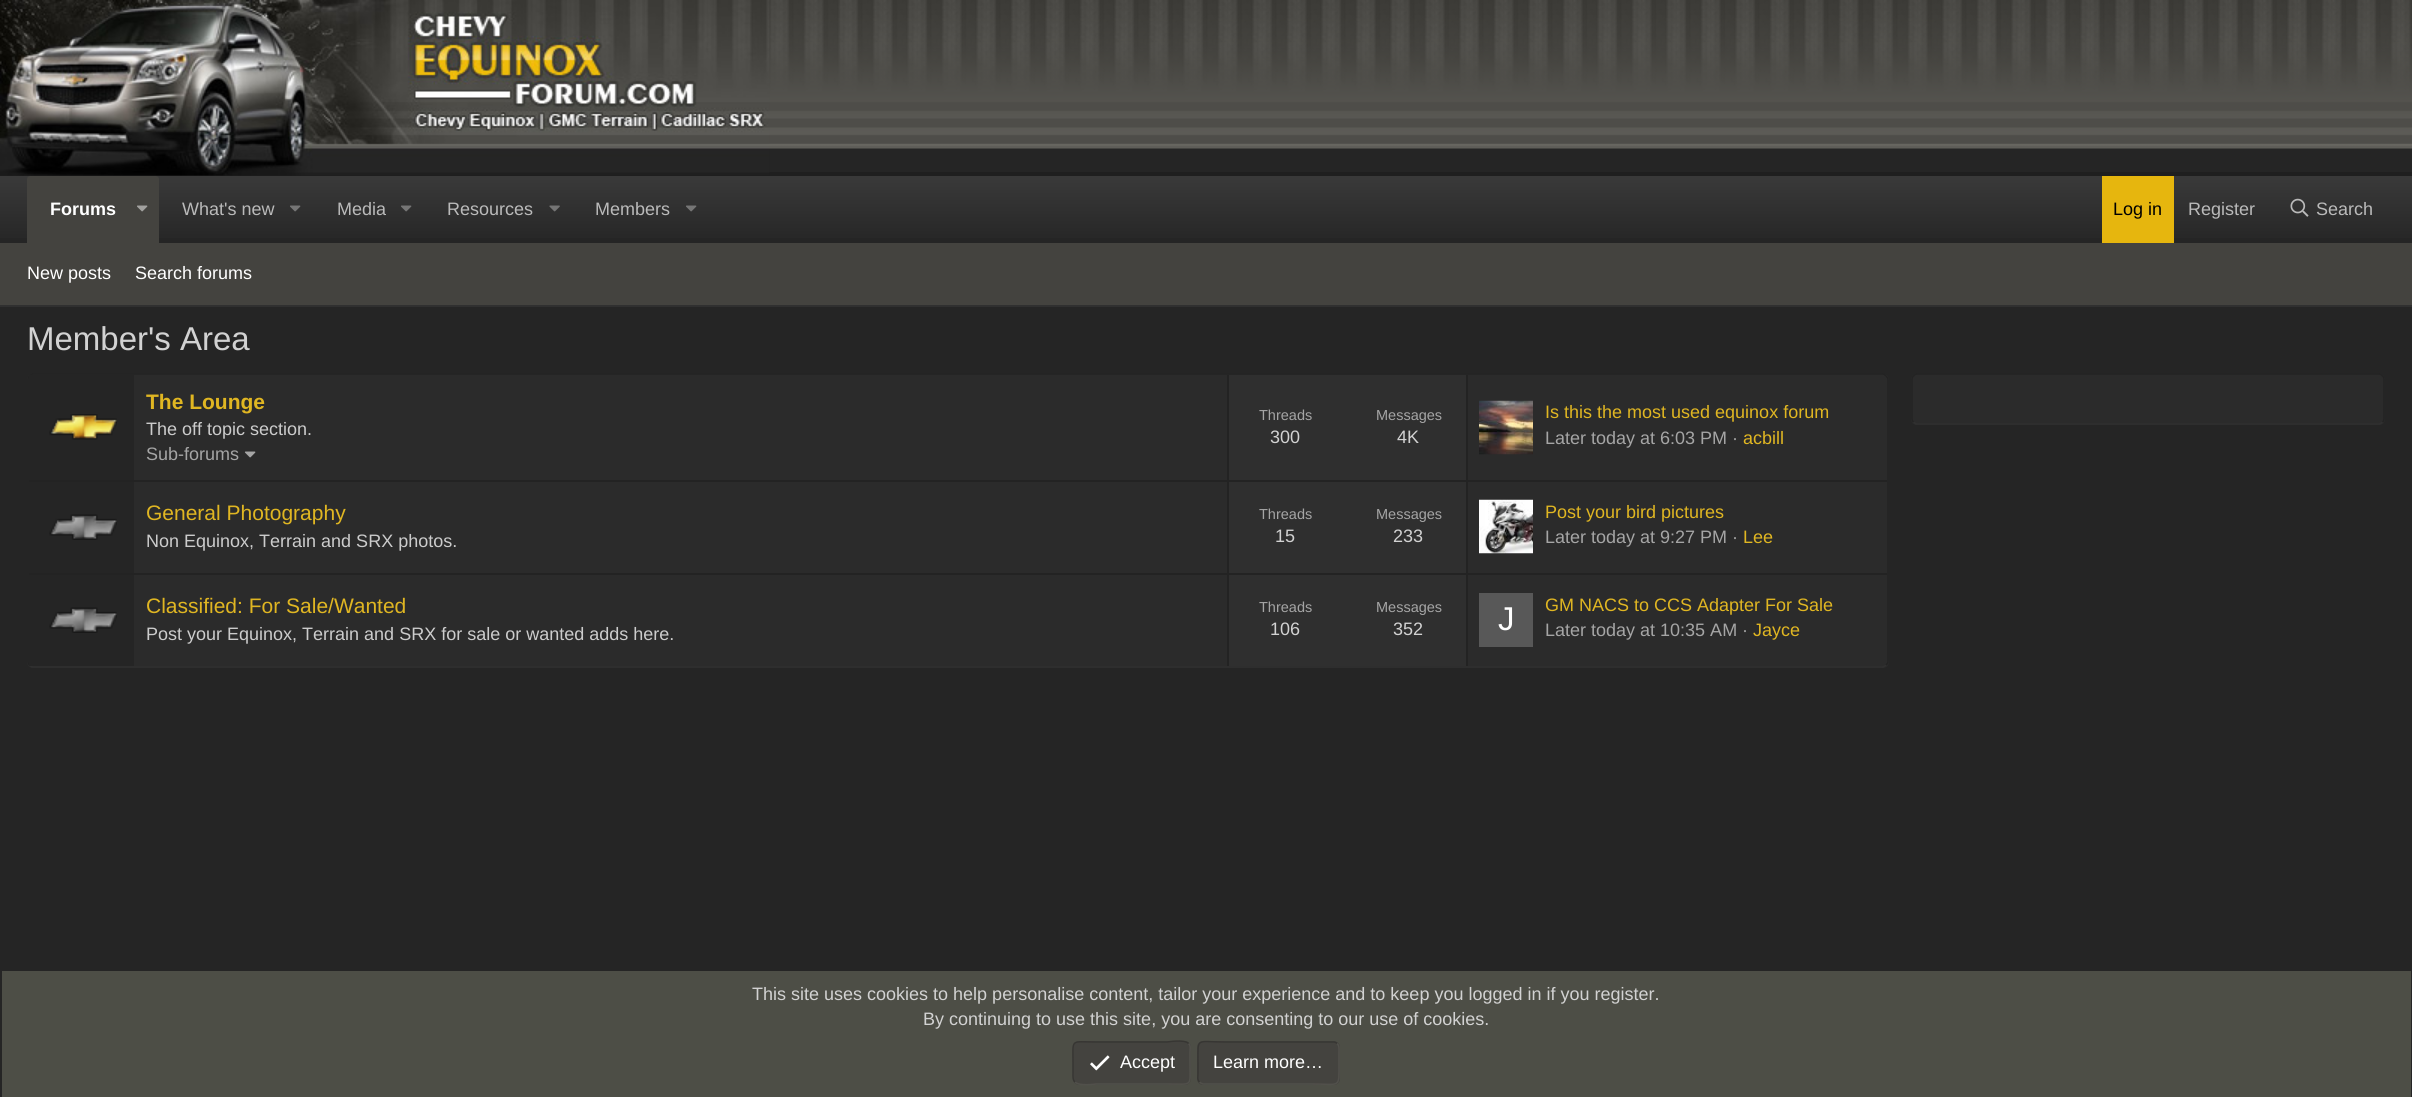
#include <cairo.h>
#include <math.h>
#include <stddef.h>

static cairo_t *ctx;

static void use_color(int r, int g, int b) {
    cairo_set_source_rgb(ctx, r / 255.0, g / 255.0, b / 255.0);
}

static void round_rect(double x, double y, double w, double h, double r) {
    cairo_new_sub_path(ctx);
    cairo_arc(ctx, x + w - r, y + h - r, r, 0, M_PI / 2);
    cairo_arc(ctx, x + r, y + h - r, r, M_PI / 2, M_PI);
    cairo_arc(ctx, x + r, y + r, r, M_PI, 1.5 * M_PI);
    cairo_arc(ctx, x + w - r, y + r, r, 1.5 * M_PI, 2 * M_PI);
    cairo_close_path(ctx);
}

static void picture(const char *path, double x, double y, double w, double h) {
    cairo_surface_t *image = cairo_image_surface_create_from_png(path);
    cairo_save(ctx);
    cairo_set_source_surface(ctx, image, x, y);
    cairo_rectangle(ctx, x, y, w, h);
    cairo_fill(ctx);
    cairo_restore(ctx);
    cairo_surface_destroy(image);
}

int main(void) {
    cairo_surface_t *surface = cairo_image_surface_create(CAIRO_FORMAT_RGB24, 2412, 1097);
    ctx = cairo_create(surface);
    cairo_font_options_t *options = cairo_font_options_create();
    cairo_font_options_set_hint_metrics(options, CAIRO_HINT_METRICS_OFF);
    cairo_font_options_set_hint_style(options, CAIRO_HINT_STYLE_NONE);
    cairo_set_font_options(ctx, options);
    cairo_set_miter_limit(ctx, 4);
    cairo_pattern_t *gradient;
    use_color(37, 37, 37);
    cairo_paint(ctx);
    use_color(31, 31, 31);
    cairo_rectangle(ctx, 0, 172, 2412, 4);
    cairo_fill(ctx);
    picture("img1.png", 769, 0, 1643, 172);
    picture("img2.png", 0, 0, 770, 176);
    gradient = cairo_pattern_create_linear(1206, 175, 1206, 243);
    cairo_pattern_add_color_stop_rgba(gradient, 0, 0.227, 0.227, 0.227, 1);
    cairo_pattern_add_color_stop_rgba(gradient, 1, 0.149, 0.149, 0.149, 1);
    cairo_set_source(ctx, gradient);
    cairo_pattern_destroy(gradient);
    cairo_rectangle(ctx, 0, 176, 2412, 62);
    cairo_fill(ctx);
    use_color(68, 67, 63);
    cairo_new_path(ctx);
    cairo_move_to(ctx, 30, 176);
    cairo_line_to(ctx, 156, 176);
    cairo_curve_to(ctx, 157.5, 176, 159, 177.5, 159, 179);
    cairo_line_to(ctx, 159, 243);
    cairo_line_to(ctx, 27, 243);
    cairo_line_to(ctx, 27, 179);
    cairo_curve_to(ctx, 27, 177.5, 28.5, 176, 30, 176);
    cairo_close_path(ctx);
    cairo_fill(ctx);
    cairo_select_font_face(ctx, "Liberation Sans", CAIRO_FONT_SLANT_NORMAL, CAIRO_FONT_WEIGHT_BOLD);
    cairo_set_font_size(ctx, 18);
    use_color(255, 255, 255);
    cairo_move_to(ctx, 50, 215);
    cairo_show_text(ctx, "Forums");
    picture("img3.png", 137, 205, 11, 7);
    cairo_select_font_face(ctx, "Liberation Sans", CAIRO_FONT_SLANT_NORMAL, CAIRO_FONT_WEIGHT_NORMAL);
    use_color(186, 186, 186);
    cairo_move_to(ctx, 182, 215);
    cairo_show_text(ctx, "What's new");
    picture("img4.png", 290, 205, 11, 7);
    cairo_move_to(ctx, 337, 215);
    cairo_show_text(ctx, "Media");
    picture("img4.png", 401, 205, 11, 7);
    cairo_move_to(ctx, 447, 215);
    cairo_show_text(ctx, "Resources");
    picture("img5.png", 549, 205, 11, 7);
    cairo_move_to(ctx, 595, 215);
    cairo_show_text(ctx, "Members");
    picture("img4.png", 686, 205, 11, 7);
    use_color(230, 182, 14);
    cairo_rectangle(ctx, 2102, 176, 72, 67);
    cairo_fill(ctx);
    use_color(0, 0, 0);
    cairo_move_to(ctx, 2113, 215);
    cairo_show_text(ctx, "Log in");
    use_color(186, 186, 186);
    cairo_move_to(ctx, 2188, 215);
    cairo_show_text(ctx, "Register");
    picture("img6.png", 2290, 198, 19, 19);
    cairo_move_to(ctx, 2316, 215);
    cairo_show_text(ctx, "Search");
    use_color(68, 67, 63);
    cairo_rectangle(ctx, 0, 243, 2412, 62);
    cairo_fill(ctx);
    use_color(48, 48, 48);
    cairo_rectangle(ctx, 0, 305, 2412, 2);
    cairo_fill(ctx);
    use_color(255, 255, 255);
    cairo_move_to(ctx, 27, 279);
    cairo_show_text(ctx, "New posts");
    cairo_move_to(ctx, 135, 279);
    cairo_show_text(ctx, "Search forums");
    cairo_set_font_size(ctx, 33);
    use_color(210, 210, 210);
    cairo_move_to(ctx, 27, 350);
    cairo_show_text(ctx, "Member's Area");
    use_color(43, 43, 43);
    round_rect(27, 374, 1862, 294, 6);
    cairo_fill(ctx);
    cairo_new_path(ctx);
    cairo_move_to(ctx, 1886, 665);
    cairo_curve_to(ctx, 1885, 666, 1884, 667, 1882.5, 667);
    cairo_line_to(ctx, 33, 667);
    cairo_curve_to(ctx, 31.5, 667, 30.5, 666, 29.5, 665);
    use_color(48, 48, 48);
    cairo_set_line_width(ctx, 1.5);
    cairo_stroke(ctx);
    cairo_new_path(ctx);
    cairo_move_to(ctx, 29.5, 665);
    cairo_curve_to(ctx, 28.5, 664, 28, 663, 28, 661.5);
    cairo_line_to(ctx, 28, 379.5);
    cairo_curve_to(ctx, 28, 378, 28.5, 377, 29.5, 376);
    cairo_curve_to(ctx, 30.5, 375, 31.5, 374, 33, 374);
    cairo_line_to(ctx, 1882.5, 374);
    cairo_curve_to(ctx, 1884, 374, 1885, 375, 1886, 376);
    cairo_curve_to(ctx, 1887, 377, 1888, 378, 1888, 379.5);
    cairo_line_to(ctx, 1888, 661.5);
    cairo_curve_to(ctx, 1888, 663, 1887, 664, 1886, 665);
    use_color(35, 35, 35);
    cairo_stroke(ctx);
    use_color(37, 37, 37);
    cairo_rectangle(ctx, 29, 375, 105, 105);
    cairo_fill(ctx);
    picture("img7.png", 49, 414, 68, 26);
    cairo_select_font_face(ctx, "Liberation Sans", CAIRO_FONT_SLANT_NORMAL, CAIRO_FONT_WEIGHT_BOLD);
    cairo_set_font_size(ctx, 21);
    use_color(224, 182, 34);
    cairo_move_to(ctx, 146, 409);
    cairo_show_text(ctx, "The Lounge");
    cairo_select_font_face(ctx, "Liberation Sans", CAIRO_FONT_SLANT_NORMAL, CAIRO_FONT_WEIGHT_NORMAL);
    cairo_set_font_size(ctx, 18);
    use_color(204, 204, 204);
    cairo_move_to(ctx, 146, 435);
    cairo_show_text(ctx, "The off topic section.");
    use_color(165, 165, 165);
    cairo_move_to(ctx, 146, 460);
    cairo_show_text(ctx, "Sub-forums");
    picture("img8.png", 244, 451, 12, 7);
    use_color(47, 47, 47);
    cairo_rectangle(ctx, 1229, 375, 237, 105);
    cairo_fill(ctx);
    use_color(35, 35, 35);
    cairo_rectangle(ctx, 1466, 375, 2, 105);
    cairo_fill(ctx);
    cairo_rectangle(ctx, 1227, 375, 2, 105);
    cairo_fill(ctx);
    cairo_set_font_size(ctx, 14.5);
    use_color(165, 165, 165);
    cairo_move_to(ctx, 1259, 420);
    cairo_show_text(ctx, "Threads");
    cairo_set_font_size(ctx, 18);
    use_color(210, 210, 210);
    cairo_move_to(ctx, 1270, 443);
    cairo_show_text(ctx, "300");
    cairo_set_font_size(ctx, 14.5);
    use_color(165, 165, 165);
    cairo_move_to(ctx, 1376, 420);
    cairo_show_text(ctx, "Messages");
    cairo_set_font_size(ctx, 18);
    use_color(210, 210, 210);
    cairo_move_to(ctx, 1397, 443);
    cairo_show_text(ctx, "4K");
    picture("img9.png", 1479, 400, 54, 55);
    use_color(224, 182, 34);
    cairo_move_to(ctx, 1545, 418);
    cairo_show_text(ctx, "Is this the most used equinox forum");
    use_color(165, 165, 165);
    cairo_move_to(ctx, 1545, 444);
    cairo_show_text(ctx, "Later today at 6:03 PM ·");
    use_color(224, 182, 34);
    cairo_move_to(ctx, 1743, 444);
    cairo_show_text(ctx, "acbill");
    use_color(35, 35, 35);
    cairo_rectangle(ctx, 29, 480, 1858, 2);
    cairo_fill(ctx);
    use_color(37, 37, 37);
    cairo_rectangle(ctx, 29, 482, 105, 91);
    cairo_fill(ctx);
    picture("img10.png", 49, 514, 68, 26);
    cairo_set_font_size(ctx, 21);
    use_color(224, 182, 34);
    cairo_move_to(ctx, 146, 520);
    cairo_show_text(ctx, "General Photography");
    cairo_set_font_size(ctx, 18);
    use_color(204, 204, 204);
    cairo_move_to(ctx, 146, 547);
    cairo_show_text(ctx, "Non Equinox, Terrain and SRX photos.");
    use_color(47, 47, 47);
    cairo_rectangle(ctx, 1229, 482, 237, 91);
    cairo_fill(ctx);
    use_color(35, 35, 35);
    cairo_rectangle(ctx, 1466, 482, 2, 91);
    cairo_fill(ctx);
    cairo_rectangle(ctx, 1227, 482, 2, 91);
    cairo_fill(ctx);
    cairo_set_font_size(ctx, 14.5);
    use_color(165, 165, 165);
    cairo_move_to(ctx, 1259, 519);
    cairo_show_text(ctx, "Threads");
    cairo_set_font_size(ctx, 18);
    use_color(210, 210, 210);
    cairo_move_to(ctx, 1275, 542);
    cairo_show_text(ctx, "15");
    cairo_set_font_size(ctx, 14.5);
    use_color(165, 165, 165);
    cairo_move_to(ctx, 1376, 519);
    cairo_show_text(ctx, "Messages");
    cairo_set_font_size(ctx, 18);
    use_color(210, 210, 210);
    cairo_move_to(ctx, 1393, 542);
    cairo_show_text(ctx, "233");
    picture("img11.png", 1479, 499, 54, 55);
    use_color(224, 182, 34);
    cairo_move_to(ctx, 1545, 518);
    cairo_show_text(ctx, "Post your bird pictures");
    use_color(165, 165, 165);
    cairo_move_to(ctx, 1545, 543);
    cairo_show_text(ctx, "Later today at 9:27 PM ·");
    use_color(224, 182, 34);
    cairo_move_to(ctx, 1743, 543);
    cairo_show_text(ctx, "Lee");
    use_color(35, 35, 35);
    cairo_rectangle(ctx, 29, 573, 1858, 2);
    cairo_fill(ctx);
    use_color(37, 37, 37);
    cairo_rectangle(ctx, 29, 575, 105, 91);
    cairo_fill(ctx);
    picture("img10.png", 49, 607, 68, 26);
    cairo_set_font_size(ctx, 21);
    use_color(224, 182, 34);
    cairo_move_to(ctx, 146, 613);
    cairo_show_text(ctx, "Classified: For Sale/Wanted");
    cairo_set_font_size(ctx, 18);
    use_color(204, 204, 204);
    cairo_move_to(ctx, 146, 640);
    cairo_show_text(ctx, "Post your Equinox, Terrain and SRX for sale or wanted adds here.");
    use_color(47, 47, 47);
    cairo_rectangle(ctx, 1229, 575, 237, 91);
    cairo_fill(ctx);
    use_color(35, 35, 35);
    cairo_rectangle(ctx, 1466, 575, 2, 91);
    cairo_fill(ctx);
    cairo_rectangle(ctx, 1227, 575, 2, 91);
    cairo_fill(ctx);
    cairo_set_font_size(ctx, 14.5);
    use_color(165, 165, 165);
    cairo_move_to(ctx, 1259, 612);
    cairo_show_text(ctx, "Threads");
    cairo_set_font_size(ctx, 18);
    use_color(210, 210, 210);
    cairo_move_to(ctx, 1270, 635);
    cairo_show_text(ctx, "106");
    cairo_set_font_size(ctx, 14.5);
    use_color(165, 165, 165);
    cairo_move_to(ctx, 1376, 612);
    cairo_show_text(ctx, "Messages");
    cairo_set_font_size(ctx, 18);
    use_color(210, 210, 210);
    cairo_move_to(ctx, 1393, 635);
    cairo_show_text(ctx, "352");
    use_color(88, 88, 88);
    cairo_rectangle(ctx, 1479, 593, 54, 54);
    cairo_fill(ctx);
    cairo_set_font_size(ctx, 33);
    use_color(255, 255, 255);
    cairo_move_to(ctx, 1498, 630);
    cairo_show_text(ctx, "J");
    cairo_set_font_size(ctx, 18);
    use_color(224, 182, 34);
    cairo_move_to(ctx, 1545, 611);
    cairo_show_text(ctx, "GM NACS to CCS Adapter For Sale");
    use_color(165, 165, 165);
    cairo_move_to(ctx, 1545, 636);
    cairo_show_text(ctx, "Later today at 10:35 AM ·");
    use_color(224, 182, 34);
    cairo_move_to(ctx, 1753, 636);
    cairo_show_text(ctx, "Jayce");
    use_color(43, 43, 43);
    round_rect(1911, 374, 474, 51, 6);
    cairo_fill(ctx);
    cairo_new_path(ctx);
    cairo_move_to(ctx, 2382.5, 422);
    cairo_curve_to(ctx, 2381.5, 423, 2380.5, 424, 2379, 424);
    cairo_line_to(ctx, 1917, 424);
    cairo_curve_to(ctx, 1915.5, 424, 1914.5, 423, 1913.5, 422);
    use_color(48, 48, 48);
    cairo_stroke(ctx);
    cairo_new_path(ctx);
    cairo_move_to(ctx, 1913.5, 422);
    cairo_curve_to(ctx, 1912.5, 421, 1912, 420, 1912, 418.5);
    cairo_line_to(ctx, 1912, 379.5);
    cairo_curve_to(ctx, 1912, 378, 1912.5, 377, 1913.5, 376);
    cairo_curve_to(ctx, 1914.5, 375, 1915.5, 374, 1917, 374);
    cairo_line_to(ctx, 2379, 374);
    cairo_curve_to(ctx, 2380.5, 374, 2381.5, 375, 2382.5, 376);
    cairo_curve_to(ctx, 2383.5, 377, 2384, 378, 2384, 379.5);
    cairo_line_to(ctx, 2384, 418.5);
    cairo_curve_to(ctx, 2384, 420, 2383.5, 421, 2382.5, 422);
    use_color(35, 35, 35);
    cairo_stroke(ctx);
    use_color(77, 78, 70);
    cairo_rectangle(ctx, 2, 971, 2409, 126);
    cairo_fill(ctx);
    use_color(210, 210, 210);
    cairo_move_to(ctx, 752, 1000);
    cairo_show_text(ctx, "This site uses cookies to help personalise content, tailor your experience and to keep you logged in if you register.");
    cairo_move_to(ctx, 923, 1025);
    cairo_show_text(ctx, "By continuing to use this site, you are consenting to our use of cookies.");
    use_color(68, 67, 63);
    round_rect(1073, 1041, 118, 44, 6);
    cairo_fill(ctx);
    cairo_new_path(ctx);
    cairo_move_to(ctx, 1188.5, 1043.5);
    cairo_curve_to(ctx, 1191, 1045.5, 1190, 1049.5, 1190, 1052);
    cairo_line_to(ctx, 1190, 1063);
    cairo_curve_to(ctx, 1190, 1087.5, 1193.5, 1084, 1167, 1084);
    cairo_line_to(ctx, 1096, 1084);
    cairo_curve_to(ctx, 1096, 1084, 1079, 1086.5, 1075, 1082);
    use_color(81, 80, 75);
    cairo_stroke(ctx);
    cairo_new_path(ctx);
    cairo_move_to(ctx, 1075, 1082);
    cairo_curve_to(ctx, 1072.5, 1080, 1073, 1076, 1073, 1073);
    cairo_line_to(ctx, 1073, 1063);
    cairo_curve_to(ctx, 1073, 1038, 1070, 1042, 1096, 1042);
    cairo_line_to(ctx, 1167, 1042);
    cairo_curve_to(ctx, 1167.5, 1042, 1184.5, 1039, 1188.5, 1043.5);
    use_color(55, 54, 51);
    cairo_stroke(ctx);
    picture("img12.png", 1090, 1055, 20, 16);
    use_color(255, 255, 255);
    cairo_move_to(ctx, 1120, 1068);
    cairo_show_text(ctx, "Accept");
    use_color(68, 67, 63);
    round_rect(1197, 1041, 143, 44, 6);
    cairo_fill(ctx);
    cairo_new_path(ctx);
    cairo_move_to(ctx, 1337, 1043.5);
    cairo_curve_to(ctx, 1339.5, 1045.5, 1339, 1049.5, 1339, 1052);
    cairo_line_to(ctx, 1339, 1063);
    cairo_curve_to(ctx, 1339, 1089, 1341, 1084, 1312, 1084);
    cairo_line_to(ctx, 1203, 1084);
    cairo_curve_to(ctx, 1201.5, 1083.5, 1200.5, 1083, 1199.5, 1082);
    use_color(81, 80, 75);
    cairo_stroke(ctx);
    cairo_new_path(ctx);
    cairo_move_to(ctx, 1199.5, 1082);
    cairo_curve_to(ctx, 1197, 1080, 1198, 1076, 1198, 1073);
    cairo_line_to(ctx, 1198, 1063);
    cairo_curve_to(ctx, 1198, 1036.5, 1195.5, 1042, 1225, 1042);
    cairo_line_to(ctx, 1333.5, 1042);
    cairo_curve_to(ctx, 1335, 1042, 1336, 1042.5, 1337, 1043.5);
    use_color(55, 54, 51);
    cairo_stroke(ctx);
    use_color(255, 255, 255);
    cairo_move_to(ctx, 1213, 1068);
    cairo_show_text(ctx, "Learn more…");
    cairo_surface_write_to_png(surface, "result.png");
    cairo_font_options_destroy(options);
    cairo_destroy(ctx);
    cairo_surface_destroy(surface);
    return 0;
}
